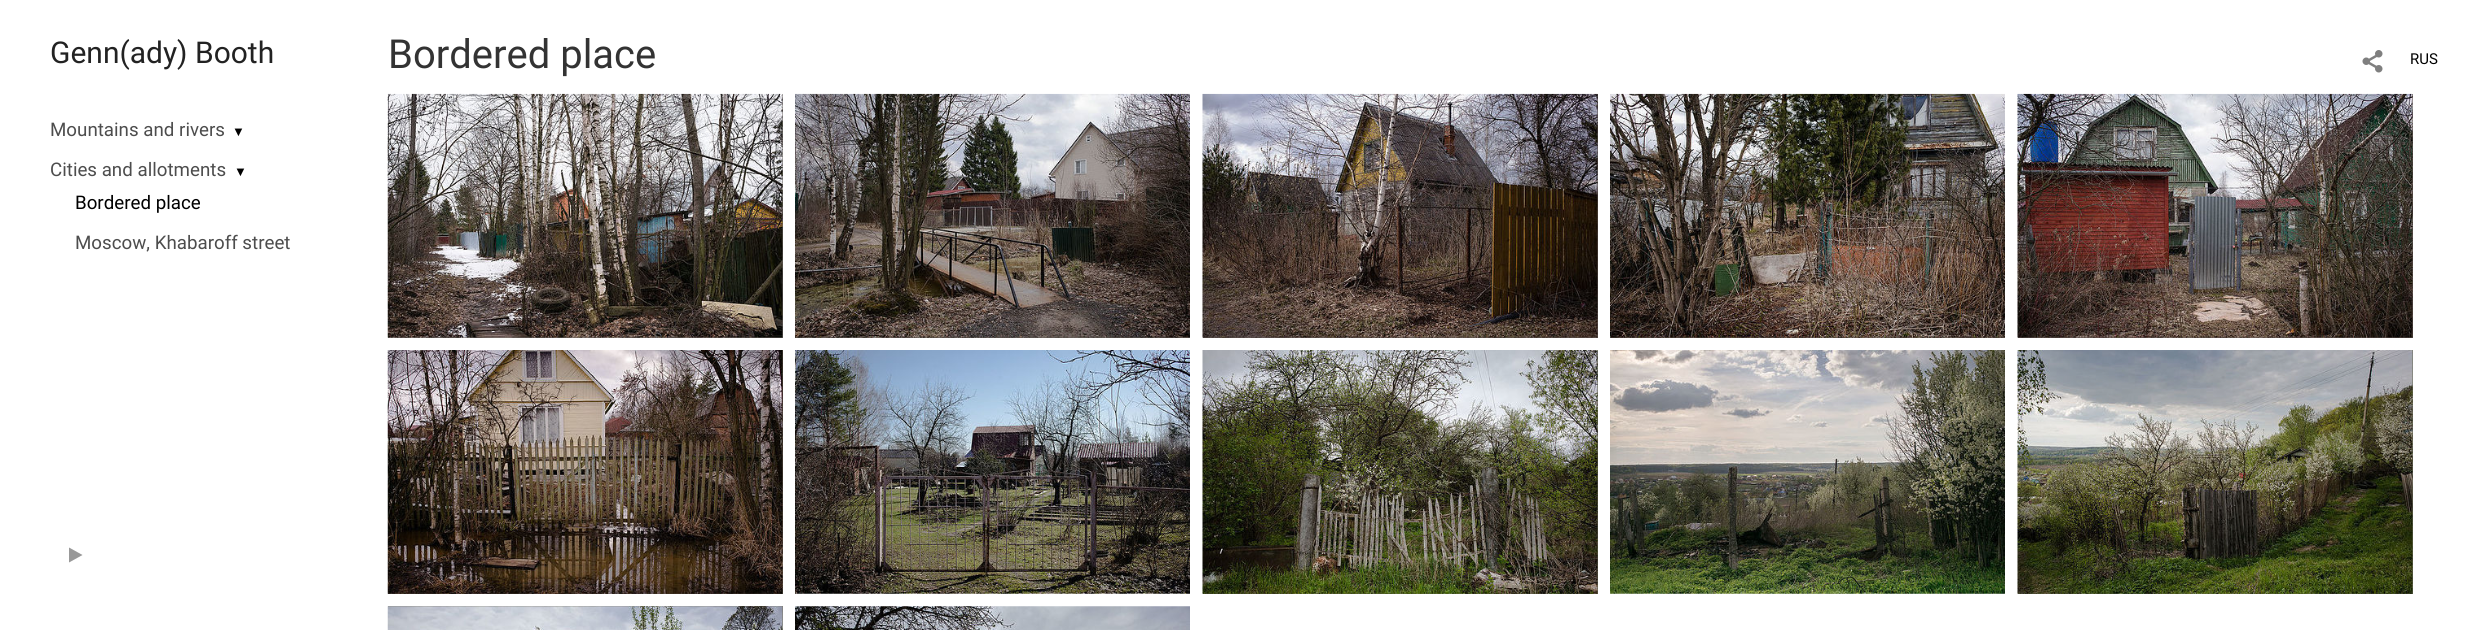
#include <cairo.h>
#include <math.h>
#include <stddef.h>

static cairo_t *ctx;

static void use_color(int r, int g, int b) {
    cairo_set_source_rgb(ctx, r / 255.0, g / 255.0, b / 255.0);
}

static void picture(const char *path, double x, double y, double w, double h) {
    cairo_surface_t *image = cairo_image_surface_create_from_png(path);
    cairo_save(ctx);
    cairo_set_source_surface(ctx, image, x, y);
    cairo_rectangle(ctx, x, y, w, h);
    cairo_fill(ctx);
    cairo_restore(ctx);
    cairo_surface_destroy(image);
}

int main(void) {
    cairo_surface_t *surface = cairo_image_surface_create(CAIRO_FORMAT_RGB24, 2474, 630);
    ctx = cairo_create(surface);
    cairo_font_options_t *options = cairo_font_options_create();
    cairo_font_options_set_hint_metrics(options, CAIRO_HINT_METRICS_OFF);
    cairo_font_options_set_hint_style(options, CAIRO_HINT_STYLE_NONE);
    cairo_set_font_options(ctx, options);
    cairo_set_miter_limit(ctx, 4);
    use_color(255, 255, 255);
    cairo_paint(ctx);
    cairo_select_font_face(ctx, "Roboto", CAIRO_FONT_SLANT_NORMAL, CAIRO_FONT_WEIGHT_NORMAL);
    cairo_set_font_size(ctx, 30);
    use_color(34, 34, 34);
    cairo_move_to(ctx, 50, 63);
    cairo_show_text(ctx, "Genn(ady) Booth");
    cairo_set_font_size(ctx, 18.75);
    use_color(77, 77, 77);
    cairo_move_to(ctx, 50, 136);
    cairo_show_text(ctx, "Mountains and rivers");
    cairo_select_font_face(ctx, "Liberation Serif", CAIRO_FONT_SLANT_NORMAL, CAIRO_FONT_WEIGHT_NORMAL);
    cairo_set_font_size(ctx, 13);
    use_color(0, 0, 0);
    cairo_move_to(ctx, 232, 136);
    cairo_show_text(ctx, "▼");
    cairo_select_font_face(ctx, "Roboto", CAIRO_FONT_SLANT_NORMAL, CAIRO_FONT_WEIGHT_NORMAL);
    cairo_set_font_size(ctx, 18.75);
    use_color(77, 77, 77);
    cairo_move_to(ctx, 50, 176);
    cairo_show_text(ctx, "Cities and allotments");
    cairo_select_font_face(ctx, "Liberation Serif", CAIRO_FONT_SLANT_NORMAL, CAIRO_FONT_WEIGHT_NORMAL);
    cairo_set_font_size(ctx, 13);
    use_color(0, 0, 0);
    cairo_move_to(ctx, 234, 176);
    cairo_show_text(ctx, "▼");
    cairo_select_font_face(ctx, "Roboto", CAIRO_FONT_SLANT_NORMAL, CAIRO_FONT_WEIGHT_NORMAL);
    cairo_set_font_size(ctx, 18.75);
    cairo_move_to(ctx, 75, 209);
    cairo_show_text(ctx, "Bordered place");
    use_color(77, 77, 77);
    cairo_move_to(ctx, 75, 249);
    cairo_show_text(ctx, "Moscow, Khabaroff street");
    use_color(153, 153, 153);
    cairo_new_path(ctx);
    cairo_move_to(ctx, 82.5, 555);
    cairo_line_to(ctx, 69, 562.5);
    cairo_line_to(ctx, 69, 547.5);
    cairo_close_path(ctx);
    cairo_fill(ctx);
    cairo_set_font_size(ctx, 40);
    use_color(51, 51, 51);
    cairo_move_to(ctx, 388, 68);
    cairo_show_text(ctx, "Bordered place");
    picture("img1.png", 2362, 50, 21, 23);
    cairo_set_font_size(ctx, 15);
    use_color(0, 0, 0);
    cairo_move_to(ctx, 2410, 64);
    cairo_show_text(ctx, "RUS");
    use_color(111, 105, 100);
    cairo_rectangle(ctx, 388, 94, 395, 244);
    cairo_fill(ctx);
    picture("img2.png", 387, 93, 396, 245);
    use_color(93, 86, 81);
    cairo_rectangle(ctx, 795, 337, 395, 1);
    cairo_fill(ctx);
    picture("img3.png", 795, 93, 395, 245);
    use_color(89, 79, 75);
    cairo_rectangle(ctx, 1203, 94, 395, 244);
    cairo_fill(ctx);
    picture("img4.png", 1202, 93, 396, 245);
    use_color(86, 77, 68);
    cairo_rectangle(ctx, 1610, 337, 395, 1);
    cairo_fill(ctx);
    picture("img5.png", 1610, 93, 395, 245);
    use_color(96, 84, 81);
    cairo_rectangle(ctx, 2018, 94, 395, 244);
    cairo_fill(ctx);
    picture("img6.png", 2017, 93, 396, 245);
    use_color(91, 78, 69);
    cairo_rectangle(ctx, 388, 350, 395, 244);
    cairo_fill(ctx);
    picture("img7.png", 387, 350, 396, 244);
    picture("img8.png", 795, 350, 395, 244);
    use_color(94, 94, 77);
    cairo_rectangle(ctx, 1203, 350, 395, 244);
    cairo_fill(ctx);
    picture("img9.png", 1202, 350, 396, 244);
    picture("img10.png", 1610, 350, 395, 244);
    use_color(103, 105, 86);
    cairo_rectangle(ctx, 2018, 350, 395, 244);
    cairo_fill(ctx);
    picture("img11.png", 2017, 350, 396, 244);
    use_color(120, 117, 99);
    cairo_rectangle(ctx, 388, 606, 395, 24);
    cairo_fill(ctx);
    picture("img12.png", 387, 606, 396, 24);
    picture("img13.png", 795, 606, 395, 24);
    cairo_surface_write_to_png(surface, "result.png");
    cairo_font_options_destroy(options);
    cairo_destroy(ctx);
    cairo_surface_destroy(surface);
    return 0;
}
